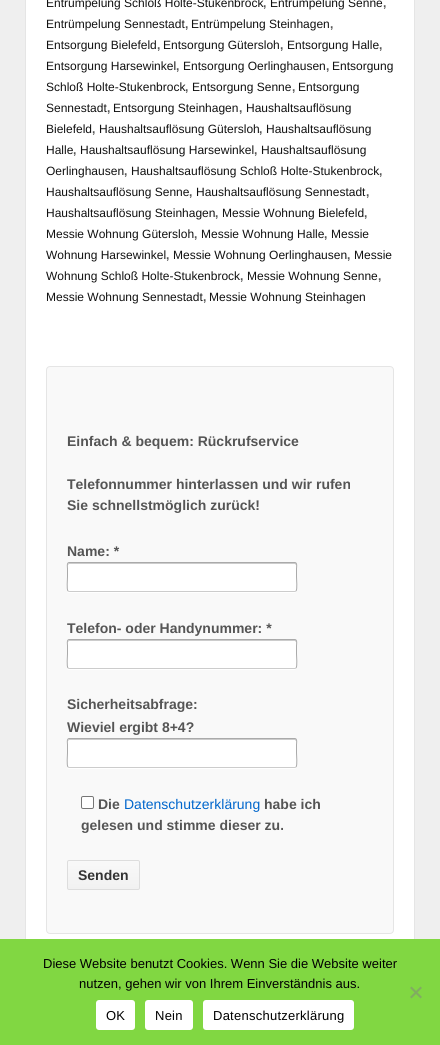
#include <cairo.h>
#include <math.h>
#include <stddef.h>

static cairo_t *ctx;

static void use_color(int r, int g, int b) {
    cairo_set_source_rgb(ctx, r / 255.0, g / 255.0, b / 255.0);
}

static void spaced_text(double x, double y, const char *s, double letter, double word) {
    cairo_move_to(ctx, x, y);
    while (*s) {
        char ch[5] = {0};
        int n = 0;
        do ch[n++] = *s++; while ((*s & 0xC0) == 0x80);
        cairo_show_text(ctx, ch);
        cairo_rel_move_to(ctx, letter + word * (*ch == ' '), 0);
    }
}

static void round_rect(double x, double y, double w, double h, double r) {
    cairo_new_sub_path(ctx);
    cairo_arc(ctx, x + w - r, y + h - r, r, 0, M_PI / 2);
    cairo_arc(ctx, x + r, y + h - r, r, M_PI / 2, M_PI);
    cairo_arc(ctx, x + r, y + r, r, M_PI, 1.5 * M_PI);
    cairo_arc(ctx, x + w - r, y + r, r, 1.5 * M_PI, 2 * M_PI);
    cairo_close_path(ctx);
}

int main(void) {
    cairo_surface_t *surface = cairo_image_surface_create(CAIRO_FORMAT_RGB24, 440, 1045);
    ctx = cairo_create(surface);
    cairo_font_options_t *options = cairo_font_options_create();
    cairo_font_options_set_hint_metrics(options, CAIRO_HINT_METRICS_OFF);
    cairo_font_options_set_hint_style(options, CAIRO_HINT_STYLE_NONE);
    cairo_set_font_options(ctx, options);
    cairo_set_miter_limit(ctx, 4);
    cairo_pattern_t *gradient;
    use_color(239, 239, 239);
    cairo_paint(ctx);
    use_color(255, 255, 255);
    cairo_rectangle(ctx, 26, 0, 388, 939);
    cairo_fill(ctx);
    cairo_rectangle(ctx, 25.5, -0.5, 389, 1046);
    use_color(229, 229, 229);
    cairo_set_line_width(ctx, 1);
    cairo_stroke(ctx);
    cairo_select_font_face(ctx, "Liberation Sans", CAIRO_FONT_SLANT_NORMAL, CAIRO_FONT_WEIGHT_NORMAL);
    cairo_set_font_size(ctx, 12);
    use_color(17, 17, 17);
    cairo_move_to(ctx, 46, 7);
    cairo_show_text(ctx, "Entrümpelung Schloß Holte-Stukenbrock");
    cairo_select_font_face(ctx, "Liberation Sans", CAIRO_FONT_SLANT_NORMAL, CAIRO_FONT_WEIGHT_BOLD);
    use_color(85, 85, 85);
    cairo_move_to(ctx, 263, 7);
    cairo_show_text(ctx, ",");
    cairo_select_font_face(ctx, "Liberation Sans", CAIRO_FONT_SLANT_NORMAL, CAIRO_FONT_WEIGHT_NORMAL);
    use_color(17, 17, 17);
    cairo_move_to(ctx, 270, 7);
    cairo_show_text(ctx, "Entrümpelung Senne");
    cairo_select_font_face(ctx, "Liberation Sans", CAIRO_FONT_SLANT_NORMAL, CAIRO_FONT_WEIGHT_BOLD);
    use_color(85, 85, 85);
    cairo_move_to(ctx, 383, 7);
    cairo_show_text(ctx, ",");
    cairo_select_font_face(ctx, "Liberation Sans", CAIRO_FONT_SLANT_NORMAL, CAIRO_FONT_WEIGHT_NORMAL);
    use_color(17, 17, 17);
    cairo_move_to(ctx, 46, 28);
    cairo_show_text(ctx, "Entrümpelung Sennestadt");
    cairo_select_font_face(ctx, "Liberation Sans", CAIRO_FONT_SLANT_NORMAL, CAIRO_FONT_WEIGHT_BOLD);
    use_color(85, 85, 85);
    cairo_move_to(ctx, 185, 28);
    cairo_show_text(ctx, ",");
    cairo_select_font_face(ctx, "Liberation Sans", CAIRO_FONT_SLANT_NORMAL, CAIRO_FONT_WEIGHT_NORMAL);
    use_color(17, 17, 17);
    cairo_move_to(ctx, 191, 28);
    cairo_show_text(ctx, "Entrümpelung Steinhagen");
    cairo_select_font_face(ctx, "Liberation Sans", CAIRO_FONT_SLANT_NORMAL, CAIRO_FONT_WEIGHT_BOLD);
    use_color(85, 85, 85);
    cairo_move_to(ctx, 330, 28);
    cairo_show_text(ctx, ",");
    cairo_select_font_face(ctx, "Liberation Sans", CAIRO_FONT_SLANT_NORMAL, CAIRO_FONT_WEIGHT_NORMAL);
    use_color(17, 17, 17);
    cairo_move_to(ctx, 46, 49);
    cairo_show_text(ctx, "Entsorgung Bielefeld");
    cairo_select_font_face(ctx, "Liberation Sans", CAIRO_FONT_SLANT_NORMAL, CAIRO_FONT_WEIGHT_BOLD);
    use_color(85, 85, 85);
    cairo_move_to(ctx, 157, 49);
    cairo_show_text(ctx, ",");
    cairo_select_font_face(ctx, "Liberation Sans", CAIRO_FONT_SLANT_NORMAL, CAIRO_FONT_WEIGHT_NORMAL);
    use_color(17, 17, 17);
    cairo_move_to(ctx, 163, 49);
    cairo_show_text(ctx, "Entsorgung Gütersloh");
    cairo_select_font_face(ctx, "Liberation Sans", CAIRO_FONT_SLANT_NORMAL, CAIRO_FONT_WEIGHT_BOLD);
    use_color(85, 85, 85);
    cairo_move_to(ctx, 280, 49);
    cairo_show_text(ctx, ",");
    cairo_select_font_face(ctx, "Liberation Sans", CAIRO_FONT_SLANT_NORMAL, CAIRO_FONT_WEIGHT_NORMAL);
    use_color(17, 17, 17);
    cairo_move_to(ctx, 287, 49);
    cairo_show_text(ctx, "Entsorgung Halle");
    cairo_select_font_face(ctx, "Liberation Sans", CAIRO_FONT_SLANT_NORMAL, CAIRO_FONT_WEIGHT_BOLD);
    use_color(85, 85, 85);
    cairo_move_to(ctx, 379, 49);
    cairo_show_text(ctx, ",");
    cairo_select_font_face(ctx, "Liberation Sans", CAIRO_FONT_SLANT_NORMAL, CAIRO_FONT_WEIGHT_NORMAL);
    use_color(17, 17, 17);
    cairo_move_to(ctx, 46, 70);
    cairo_show_text(ctx, "Entsorgung Harsewinkel");
    cairo_select_font_face(ctx, "Liberation Sans", CAIRO_FONT_SLANT_NORMAL, CAIRO_FONT_WEIGHT_BOLD);
    use_color(85, 85, 85);
    cairo_move_to(ctx, 176, 70);
    cairo_show_text(ctx, ",");
    cairo_select_font_face(ctx, "Liberation Sans", CAIRO_FONT_SLANT_NORMAL, CAIRO_FONT_WEIGHT_NORMAL);
    use_color(17, 17, 17);
    cairo_move_to(ctx, 183, 70);
    cairo_show_text(ctx, "Entsorgung Oerlinghausen");
    cairo_select_font_face(ctx, "Liberation Sans", CAIRO_FONT_SLANT_NORMAL, CAIRO_FONT_WEIGHT_BOLD);
    use_color(85, 85, 85);
    cairo_move_to(ctx, 326, 70);
    cairo_show_text(ctx, ",");
    cairo_select_font_face(ctx, "Liberation Sans", CAIRO_FONT_SLANT_NORMAL, CAIRO_FONT_WEIGHT_NORMAL);
    use_color(17, 17, 17);
    cairo_move_to(ctx, 332, 70);
    cairo_show_text(ctx, "Entsorgung");
    cairo_move_to(ctx, 46, 91);
    cairo_show_text(ctx, "Schloß Holte-Stukenbrock");
    cairo_select_font_face(ctx, "Liberation Sans", CAIRO_FONT_SLANT_NORMAL, CAIRO_FONT_WEIGHT_BOLD);
    use_color(85, 85, 85);
    cairo_move_to(ctx, 185, 91);
    cairo_show_text(ctx, ",");
    cairo_select_font_face(ctx, "Liberation Sans", CAIRO_FONT_SLANT_NORMAL, CAIRO_FONT_WEIGHT_NORMAL);
    use_color(17, 17, 17);
    cairo_move_to(ctx, 192, 91);
    cairo_show_text(ctx, "Entsorgung Senne");
    cairo_select_font_face(ctx, "Liberation Sans", CAIRO_FONT_SLANT_NORMAL, CAIRO_FONT_WEIGHT_BOLD);
    use_color(85, 85, 85);
    cairo_move_to(ctx, 292, 91);
    cairo_show_text(ctx, ",");
    cairo_select_font_face(ctx, "Liberation Sans", CAIRO_FONT_SLANT_NORMAL, CAIRO_FONT_WEIGHT_NORMAL);
    use_color(17, 17, 17);
    cairo_move_to(ctx, 298, 91);
    cairo_show_text(ctx, "Entsorgung");
    cairo_move_to(ctx, 46, 112);
    cairo_show_text(ctx, "Sennestadt");
    cairo_select_font_face(ctx, "Liberation Sans", CAIRO_FONT_SLANT_NORMAL, CAIRO_FONT_WEIGHT_BOLD);
    use_color(85, 85, 85);
    cairo_move_to(ctx, 107, 112);
    cairo_show_text(ctx, ",");
    cairo_select_font_face(ctx, "Liberation Sans", CAIRO_FONT_SLANT_NORMAL, CAIRO_FONT_WEIGHT_NORMAL);
    use_color(17, 17, 17);
    cairo_move_to(ctx, 113, 112);
    cairo_show_text(ctx, "Entsorgung Steinhagen");
    cairo_select_font_face(ctx, "Liberation Sans", CAIRO_FONT_SLANT_NORMAL, CAIRO_FONT_WEIGHT_BOLD);
    use_color(85, 85, 85);
    cairo_move_to(ctx, 239, 112);
    cairo_show_text(ctx, ",");
    cairo_select_font_face(ctx, "Liberation Sans", CAIRO_FONT_SLANT_NORMAL, CAIRO_FONT_WEIGHT_NORMAL);
    use_color(17, 17, 17);
    cairo_move_to(ctx, 246, 112);
    cairo_show_text(ctx, "Haushaltsauflösung");
    cairo_move_to(ctx, 46, 133);
    cairo_show_text(ctx, "Bielefeld");
    cairo_select_font_face(ctx, "Liberation Sans", CAIRO_FONT_SLANT_NORMAL, CAIRO_FONT_WEIGHT_BOLD);
    use_color(85, 85, 85);
    cairo_move_to(ctx, 92, 133);
    cairo_show_text(ctx, ",");
    cairo_select_font_face(ctx, "Liberation Sans", CAIRO_FONT_SLANT_NORMAL, CAIRO_FONT_WEIGHT_NORMAL);
    use_color(17, 17, 17);
    cairo_move_to(ctx, 99, 133);
    cairo_show_text(ctx, "Haushaltsauflösung Gütersloh");
    cairo_select_font_face(ctx, "Liberation Sans", CAIRO_FONT_SLANT_NORMAL, CAIRO_FONT_WEIGHT_BOLD);
    use_color(85, 85, 85);
    cairo_move_to(ctx, 259, 133);
    cairo_show_text(ctx, ",");
    cairo_select_font_face(ctx, "Liberation Sans", CAIRO_FONT_SLANT_NORMAL, CAIRO_FONT_WEIGHT_NORMAL);
    use_color(17, 17, 17);
    cairo_move_to(ctx, 266, 133);
    cairo_show_text(ctx, "Haushaltsauflösung");
    cairo_move_to(ctx, 46, 154);
    cairo_show_text(ctx, "Halle");
    cairo_select_font_face(ctx, "Liberation Sans", CAIRO_FONT_SLANT_NORMAL, CAIRO_FONT_WEIGHT_BOLD);
    use_color(85, 85, 85);
    cairo_move_to(ctx, 73, 154);
    cairo_show_text(ctx, ",");
    cairo_select_font_face(ctx, "Liberation Sans", CAIRO_FONT_SLANT_NORMAL, CAIRO_FONT_WEIGHT_NORMAL);
    use_color(17, 17, 17);
    cairo_move_to(ctx, 80, 154);
    cairo_show_text(ctx, "Haushaltsauflösung Harsewinkel");
    cairo_select_font_face(ctx, "Liberation Sans", CAIRO_FONT_SLANT_NORMAL, CAIRO_FONT_WEIGHT_BOLD);
    use_color(85, 85, 85);
    cairo_move_to(ctx, 254, 154);
    cairo_show_text(ctx, ",");
    cairo_select_font_face(ctx, "Liberation Sans", CAIRO_FONT_SLANT_NORMAL, CAIRO_FONT_WEIGHT_NORMAL);
    use_color(17, 17, 17);
    cairo_move_to(ctx, 261, 154);
    cairo_show_text(ctx, "Haushaltsauflösung");
    cairo_move_to(ctx, 46, 175);
    cairo_show_text(ctx, "Oerlinghausen");
    cairo_select_font_face(ctx, "Liberation Sans", CAIRO_FONT_SLANT_NORMAL, CAIRO_FONT_WEIGHT_BOLD);
    use_color(85, 85, 85);
    cairo_move_to(ctx, 124, 175);
    cairo_show_text(ctx, ",");
    cairo_select_font_face(ctx, "Liberation Sans", CAIRO_FONT_SLANT_NORMAL, CAIRO_FONT_WEIGHT_NORMAL);
    use_color(17, 17, 17);
    cairo_move_to(ctx, 131, 175);
    cairo_show_text(ctx, "Haushaltsauflösung Schloß Holte-Stukenbrock");
    cairo_select_font_face(ctx, "Liberation Sans", CAIRO_FONT_SLANT_NORMAL, CAIRO_FONT_WEIGHT_BOLD);
    use_color(85, 85, 85);
    cairo_move_to(ctx, 379, 175);
    cairo_show_text(ctx, ",");
    cairo_select_font_face(ctx, "Liberation Sans", CAIRO_FONT_SLANT_NORMAL, CAIRO_FONT_WEIGHT_NORMAL);
    use_color(17, 17, 17);
    cairo_move_to(ctx, 46, 196);
    cairo_show_text(ctx, "Haushaltsauflösung Senne");
    cairo_select_font_face(ctx, "Liberation Sans", CAIRO_FONT_SLANT_NORMAL, CAIRO_FONT_WEIGHT_BOLD);
    use_color(85, 85, 85);
    cairo_move_to(ctx, 189, 196);
    cairo_show_text(ctx, ",");
    cairo_select_font_face(ctx, "Liberation Sans", CAIRO_FONT_SLANT_NORMAL, CAIRO_FONT_WEIGHT_NORMAL);
    use_color(17, 17, 17);
    cairo_move_to(ctx, 196, 196);
    cairo_show_text(ctx, "Haushaltsauflösung Sennestadt");
    cairo_select_font_face(ctx, "Liberation Sans", CAIRO_FONT_SLANT_NORMAL, CAIRO_FONT_WEIGHT_BOLD);
    use_color(85, 85, 85);
    cairo_move_to(ctx, 366, 196);
    cairo_show_text(ctx, ",");
    cairo_select_font_face(ctx, "Liberation Sans", CAIRO_FONT_SLANT_NORMAL, CAIRO_FONT_WEIGHT_NORMAL);
    use_color(17, 17, 17);
    cairo_move_to(ctx, 46, 217);
    cairo_show_text(ctx, "Haushaltsauflösung Steinhagen");
    cairo_select_font_face(ctx, "Liberation Sans", CAIRO_FONT_SLANT_NORMAL, CAIRO_FONT_WEIGHT_BOLD);
    use_color(85, 85, 85);
    cairo_move_to(ctx, 215, 217);
    cairo_show_text(ctx, ",");
    cairo_select_font_face(ctx, "Liberation Sans", CAIRO_FONT_SLANT_NORMAL, CAIRO_FONT_WEIGHT_NORMAL);
    use_color(17, 17, 17);
    cairo_move_to(ctx, 222, 217);
    cairo_show_text(ctx, "Messie Wohnung Bielefeld");
    cairo_select_font_face(ctx, "Liberation Sans", CAIRO_FONT_SLANT_NORMAL, CAIRO_FONT_WEIGHT_BOLD);
    use_color(85, 85, 85);
    cairo_move_to(ctx, 364, 217);
    cairo_show_text(ctx, ",");
    cairo_select_font_face(ctx, "Liberation Sans", CAIRO_FONT_SLANT_NORMAL, CAIRO_FONT_WEIGHT_NORMAL);
    use_color(17, 17, 17);
    cairo_move_to(ctx, 46, 238);
    cairo_show_text(ctx, "Messie Wohnung Gütersloh");
    cairo_select_font_face(ctx, "Liberation Sans", CAIRO_FONT_SLANT_NORMAL, CAIRO_FONT_WEIGHT_BOLD);
    use_color(85, 85, 85);
    cairo_move_to(ctx, 194, 238);
    cairo_show_text(ctx, ",");
    cairo_select_font_face(ctx, "Liberation Sans", CAIRO_FONT_SLANT_NORMAL, CAIRO_FONT_WEIGHT_NORMAL);
    use_color(17, 17, 17);
    cairo_move_to(ctx, 201, 238);
    cairo_show_text(ctx, "Messie Wohnung Halle");
    cairo_select_font_face(ctx, "Liberation Sans", CAIRO_FONT_SLANT_NORMAL, CAIRO_FONT_WEIGHT_BOLD);
    use_color(85, 85, 85);
    cairo_move_to(ctx, 324, 238);
    cairo_show_text(ctx, ",");
    cairo_select_font_face(ctx, "Liberation Sans", CAIRO_FONT_SLANT_NORMAL, CAIRO_FONT_WEIGHT_NORMAL);
    use_color(17, 17, 17);
    cairo_move_to(ctx, 331, 238);
    cairo_show_text(ctx, "Messie");
    cairo_move_to(ctx, 46, 259);
    cairo_show_text(ctx, "Wohnung Harsewinkel");
    cairo_select_font_face(ctx, "Liberation Sans", CAIRO_FONT_SLANT_NORMAL, CAIRO_FONT_WEIGHT_BOLD);
    use_color(85, 85, 85);
    cairo_move_to(ctx, 166, 259);
    cairo_show_text(ctx, ",");
    cairo_select_font_face(ctx, "Liberation Sans", CAIRO_FONT_SLANT_NORMAL, CAIRO_FONT_WEIGHT_NORMAL);
    use_color(17, 17, 17);
    cairo_move_to(ctx, 173, 259);
    cairo_show_text(ctx, "Messie Wohnung Oerlinghausen");
    cairo_select_font_face(ctx, "Liberation Sans", CAIRO_FONT_SLANT_NORMAL, CAIRO_FONT_WEIGHT_BOLD);
    use_color(85, 85, 85);
    cairo_move_to(ctx, 347, 259);
    cairo_show_text(ctx, ",");
    cairo_select_font_face(ctx, "Liberation Sans", CAIRO_FONT_SLANT_NORMAL, CAIRO_FONT_WEIGHT_NORMAL);
    use_color(17, 17, 17);
    cairo_move_to(ctx, 354, 259);
    cairo_show_text(ctx, "Messie");
    cairo_move_to(ctx, 46, 280);
    cairo_show_text(ctx, "Wohnung Schloß Holte-Stukenbrock");
    cairo_select_font_face(ctx, "Liberation Sans", CAIRO_FONT_SLANT_NORMAL, CAIRO_FONT_WEIGHT_BOLD);
    use_color(85, 85, 85);
    cairo_move_to(ctx, 240, 280);
    cairo_show_text(ctx, ",");
    cairo_select_font_face(ctx, "Liberation Sans", CAIRO_FONT_SLANT_NORMAL, CAIRO_FONT_WEIGHT_NORMAL);
    use_color(17, 17, 17);
    cairo_move_to(ctx, 247, 280);
    cairo_show_text(ctx, "Messie Wohnung Senne");
    cairo_select_font_face(ctx, "Liberation Sans", CAIRO_FONT_SLANT_NORMAL, CAIRO_FONT_WEIGHT_BOLD);
    use_color(85, 85, 85);
    cairo_move_to(ctx, 378, 280);
    cairo_show_text(ctx, ",");
    cairo_select_font_face(ctx, "Liberation Sans", CAIRO_FONT_SLANT_NORMAL, CAIRO_FONT_WEIGHT_NORMAL);
    use_color(17, 17, 17);
    cairo_move_to(ctx, 46, 301);
    cairo_show_text(ctx, "Messie Wohnung Sennestadt");
    cairo_select_font_face(ctx, "Liberation Sans", CAIRO_FONT_SLANT_NORMAL, CAIRO_FONT_WEIGHT_BOLD);
    use_color(85, 85, 85);
    cairo_move_to(ctx, 203, 301);
    cairo_show_text(ctx, ",");
    cairo_select_font_face(ctx, "Liberation Sans", CAIRO_FONT_SLANT_NORMAL, CAIRO_FONT_WEIGHT_NORMAL);
    use_color(17, 17, 17);
    cairo_move_to(ctx, 209, 301);
    cairo_show_text(ctx, "Messie Wohnung Steinhagen");
    use_color(249, 249, 249);
    round_rect(46.5, 366.5, 347, 567, 3.5);
    cairo_fill_preserve(ctx);
    use_color(229, 229, 229);
    cairo_stroke(ctx);
    cairo_select_font_face(ctx, "Liberation Sans", CAIRO_FONT_SLANT_NORMAL, CAIRO_FONT_WEIGHT_BOLD);
    cairo_set_font_size(ctx, 14);
    use_color(85, 85, 85);
    cairo_move_to(ctx, 67, 446);
    cairo_show_text(ctx, "Einfach & bequem: Rückrufservice");
    cairo_move_to(ctx, 67, 489);
    cairo_show_text(ctx, "Telefonnummer hinterlassen und wir rufen");
    cairo_move_to(ctx, 67, 510);
    cairo_show_text(ctx, "Sie schnellstmöglich zurück!");
    cairo_move_to(ctx, 67, 556);
    cairo_show_text(ctx, "Name: *");
    use_color(255, 255, 255);
    cairo_new_path(ctx);
    cairo_move_to(ctx, 67, 590);
    cairo_curve_to(ctx, 67, 591, 67, 593, 69, 593);
    cairo_line_to(ctx, 295, 593);
    cairo_line_to(ctx, 296, 592);
    cairo_line_to(ctx, 297, 590);
    cairo_curve_to(ctx, 297, 591, 296, 592, 295, 592);
    cairo_line_to(ctx, 69, 592);
    cairo_curve_to(ctx, 68, 592, 67, 591, 67, 590);
    cairo_close_path(ctx);
    cairo_fill(ctx);
    round_rect(67, 562, 230, 30, 2);
    cairo_fill(ctx);
    use_color(204, 204, 204);
    cairo_set_fill_rule(ctx, CAIRO_FILL_RULE_EVEN_ODD);
    cairo_new_path(ctx);
    cairo_move_to(ctx, 69, 564);
    cairo_line_to(ctx, 295, 564);
    cairo_line_to(ctx, 296, 565);
    cairo_line_to(ctx, 296, 563);
    cairo_line_to(ctx, 69, 563);
    cairo_curve_to(ctx, 68, 563, 68, 564, 68, 565);
    cairo_close_path(ctx);
    cairo_move_to(ctx, 296, 590);
    cairo_line_to(ctx, 296, 591);
    cairo_close_path(ctx);
    cairo_fill(ctx);
    cairo_new_path(ctx);
    cairo_move_to(ctx, 296, 591);
    cairo_line_to(ctx, 295, 591.5);
    cairo_line_to(ctx, 69, 591.5);
    cairo_line_to(ctx, 68, 591);
    cairo_stroke(ctx);
    cairo_new_path(ctx);
    cairo_move_to(ctx, 68, 591);
    cairo_curve_to(ctx, 66.5, 589.5, 67.5, 579, 67.5, 577);
    cairo_line_to(ctx, 67.5, 568.5);
    cairo_curve_to(ctx, 67.5, 568, 66.5, 562.5, 69, 562.5);
    cairo_line_to(ctx, 295, 562.5);
    cairo_curve_to(ctx, 297.5, 562.5, 296.5, 568, 296.5, 568.5);
    cairo_line_to(ctx, 296.5, 577);
    cairo_curve_to(ctx, 296.5, 579, 297.5, 589.5, 296, 591);
    use_color(170, 170, 170);
    cairo_stroke(ctx);
    use_color(85, 85, 85);
    cairo_move_to(ctx, 67, 633);
    cairo_show_text(ctx, "Telefon- oder Handynummer: *");
    use_color(255, 255, 255);
    cairo_set_fill_rule(ctx, CAIRO_FILL_RULE_WINDING);
    cairo_new_path(ctx);
    cairo_move_to(ctx, 67, 667);
    cairo_curve_to(ctx, 67, 668, 67, 670, 69, 670);
    cairo_line_to(ctx, 295, 670);
    cairo_line_to(ctx, 296, 669);
    cairo_line_to(ctx, 297, 667);
    cairo_curve_to(ctx, 297, 668, 296, 669, 295, 669);
    cairo_line_to(ctx, 69, 669);
    cairo_curve_to(ctx, 68, 669, 67, 668, 67, 667);
    cairo_close_path(ctx);
    cairo_fill(ctx);
    round_rect(67, 639, 230, 30, 2);
    cairo_fill(ctx);
    use_color(204, 204, 204);
    cairo_set_fill_rule(ctx, CAIRO_FILL_RULE_EVEN_ODD);
    cairo_new_path(ctx);
    cairo_move_to(ctx, 69, 641);
    cairo_line_to(ctx, 295, 641);
    cairo_line_to(ctx, 296, 642);
    cairo_line_to(ctx, 296, 640);
    cairo_line_to(ctx, 69, 640);
    cairo_curve_to(ctx, 68, 640, 68, 641, 68, 642);
    cairo_close_path(ctx);
    cairo_move_to(ctx, 296, 667);
    cairo_line_to(ctx, 296, 668);
    cairo_close_path(ctx);
    cairo_fill(ctx);
    cairo_new_path(ctx);
    cairo_move_to(ctx, 296, 668);
    cairo_line_to(ctx, 295, 668.5);
    cairo_line_to(ctx, 69, 668.5);
    cairo_line_to(ctx, 68, 668);
    cairo_stroke(ctx);
    cairo_new_path(ctx);
    cairo_move_to(ctx, 68, 668);
    cairo_curve_to(ctx, 66.5, 666.5, 67.5, 656, 67.5, 654);
    cairo_line_to(ctx, 67.5, 645.5);
    cairo_curve_to(ctx, 67.5, 645, 66.5, 639.5, 69, 639.5);
    cairo_line_to(ctx, 295, 639.5);
    cairo_curve_to(ctx, 297.5, 639.5, 296.5, 645, 296.5, 645.5);
    cairo_line_to(ctx, 296.5, 654);
    cairo_curve_to(ctx, 296.5, 656, 297.5, 666.5, 296, 668);
    use_color(170, 170, 170);
    cairo_stroke(ctx);
    use_color(85, 85, 85);
    cairo_move_to(ctx, 67, 709);
    cairo_show_text(ctx, "Sicherheitsabfrage:");
    cairo_move_to(ctx, 67, 732);
    cairo_show_text(ctx, "Wieviel ergibt 8+4?");
    use_color(255, 255, 255);
    cairo_set_fill_rule(ctx, CAIRO_FILL_RULE_WINDING);
    cairo_new_path(ctx);
    cairo_move_to(ctx, 67, 766);
    cairo_curve_to(ctx, 67, 767, 67, 769, 69, 769);
    cairo_line_to(ctx, 295, 769);
    cairo_line_to(ctx, 296, 768);
    cairo_line_to(ctx, 297, 766);
    cairo_curve_to(ctx, 297, 767, 296, 768, 295, 768);
    cairo_line_to(ctx, 69, 768);
    cairo_curve_to(ctx, 68, 768, 67, 767, 67, 766);
    cairo_close_path(ctx);
    cairo_fill(ctx);
    round_rect(67, 738, 230, 30, 2);
    cairo_fill(ctx);
    use_color(204, 204, 204);
    cairo_set_fill_rule(ctx, CAIRO_FILL_RULE_EVEN_ODD);
    cairo_new_path(ctx);
    cairo_move_to(ctx, 69, 740);
    cairo_line_to(ctx, 295, 740);
    cairo_line_to(ctx, 296, 741);
    cairo_line_to(ctx, 296, 739);
    cairo_line_to(ctx, 69, 739);
    cairo_curve_to(ctx, 68, 739, 68, 740, 68, 741);
    cairo_close_path(ctx);
    cairo_move_to(ctx, 296, 766);
    cairo_line_to(ctx, 296, 767);
    cairo_close_path(ctx);
    cairo_fill(ctx);
    cairo_new_path(ctx);
    cairo_move_to(ctx, 296, 767);
    cairo_line_to(ctx, 295, 767.5);
    cairo_line_to(ctx, 69, 767.5);
    cairo_line_to(ctx, 68, 767);
    cairo_stroke(ctx);
    cairo_new_path(ctx);
    cairo_move_to(ctx, 68, 767);
    cairo_curve_to(ctx, 66.5, 765.5, 67.5, 755, 67.5, 753);
    cairo_line_to(ctx, 67.5, 744.5);
    cairo_curve_to(ctx, 67.5, 744, 66.5, 738.5, 69, 738.5);
    cairo_line_to(ctx, 295, 738.5);
    cairo_curve_to(ctx, 297.5, 738.5, 296.5, 744, 296.5, 744.5);
    cairo_line_to(ctx, 296.5, 753);
    cairo_curve_to(ctx, 296.5, 755, 297.5, 765.5, 296, 767);
    use_color(170, 170, 170);
    cairo_stroke(ctx);
    use_color(255, 255, 255);
    round_rect(81.5, 796.5, 12, 12, 1.5);
    cairo_fill_preserve(ctx);
    use_color(118, 118, 118);
    cairo_stroke(ctx);
    use_color(85, 85, 85);
    cairo_move_to(ctx, 98, 809);
    cairo_show_text(ctx, "Die");
    cairo_select_font_face(ctx, "Liberation Sans", CAIRO_FONT_SLANT_NORMAL, CAIRO_FONT_WEIGHT_NORMAL);
    use_color(0, 102, 204);
    cairo_move_to(ctx, 124, 809);
    cairo_show_text(ctx, "Datenschutzerklärung");
    cairo_select_font_face(ctx, "Liberation Sans", CAIRO_FONT_SLANT_NORMAL, CAIRO_FONT_WEIGHT_BOLD);
    use_color(85, 85, 85);
    cairo_move_to(ctx, 264, 809);
    cairo_show_text(ctx, "habe ich");
    cairo_move_to(ctx, 81, 830);
    cairo_show_text(ctx, "gelesen und stimme dieser zu.");
    cairo_save(ctx);
    cairo_set_fill_rule(ctx, CAIRO_FILL_RULE_WINDING);
    round_rect(67, 860, 73, 30, 2);
    cairo_clip(ctx);
    gradient = cairo_pattern_create_linear(104, 861, 104, 889);
    cairo_pattern_add_color_stop_rgba(gradient, 0, 0.976, 0.976, 0.976, 1);
    cairo_pattern_add_color_stop_rgba(gradient, 1, 0.945, 0.945, 0.945, 1);
    cairo_set_source(ctx, gradient);
    cairo_pattern_destroy(gradient);
    cairo_rectangle(ctx, 67, 861, 73, 28);
    cairo_fill(ctx);
    cairo_restore(ctx);
    round_rect(67.5, 860.5, 72, 29, 1.5);
    use_color(221, 221, 221);
    cairo_stroke(ctx);
    use_color(51, 51, 51);
    cairo_move_to(ctx, 78, 880);
    cairo_show_text(ctx, "Senden");
    use_color(129, 215, 66);
    cairo_rectangle(ctx, 0, 939, 440, 106);
    cairo_fill(ctx);
    cairo_select_font_face(ctx, "Liberation Sans", CAIRO_FONT_SLANT_NORMAL, CAIRO_FONT_WEIGHT_NORMAL);
    cairo_set_font_size(ctx, 13);
    use_color(0, 0, 0);
    cairo_move_to(ctx, 43, 968);
    cairo_show_text(ctx, "Diese Website benutzt Cookies. Wenn Sie die Website weiter");
    cairo_move_to(ctx, 79, 988);
    cairo_show_text(ctx, "nutzen, gehen wir von Ihrem Einverständnis aus.");
    use_color(129, 172, 97);
    cairo_set_fill_rule(ctx, CAIRO_FILL_RULE_WINDING);
    cairo_new_path(ctx);
    cairo_move_to(ctx, 420.5, 986.5);
    cairo_line_to(ctx, 422, 988);
    cairo_line_to(ctx, 411.5, 998.5);
    cairo_line_to(ctx, 410, 997);
    cairo_close_path(ctx);
    cairo_fill(ctx);
    cairo_new_path(ctx);
    cairo_move_to(ctx, 410, 988);
    cairo_line_to(ctx, 411.5, 986.5);
    cairo_line_to(ctx, 422, 997);
    cairo_line_to(ctx, 420.5, 998.5);
    cairo_close_path(ctx);
    cairo_fill(ctx);
    use_color(255, 255, 255);
    round_rect(96, 1000, 39, 30, 3);
    cairo_fill(ctx);
    use_color(0, 0, 0);
    spaced_text(106, 1020, "OK", 0.25, 0);
    use_color(255, 255, 255);
    round_rect(145, 1000, 48, 30, 3);
    cairo_fill(ctx);
    use_color(0, 0, 0);
    spaced_text(155, 1020, "Nein", 0.25, 0);
    use_color(255, 255, 255);
    round_rect(203, 1000, 151, 30, 3);
    cairo_fill(ctx);
    use_color(0, 0, 0);
    spaced_text(213, 1020, "Datenschutzerklärung", 0.25, 0);
    cairo_surface_write_to_png(surface, "result.png");
    cairo_font_options_destroy(options);
    cairo_destroy(ctx);
    cairo_surface_destroy(surface);
    return 0;
}
